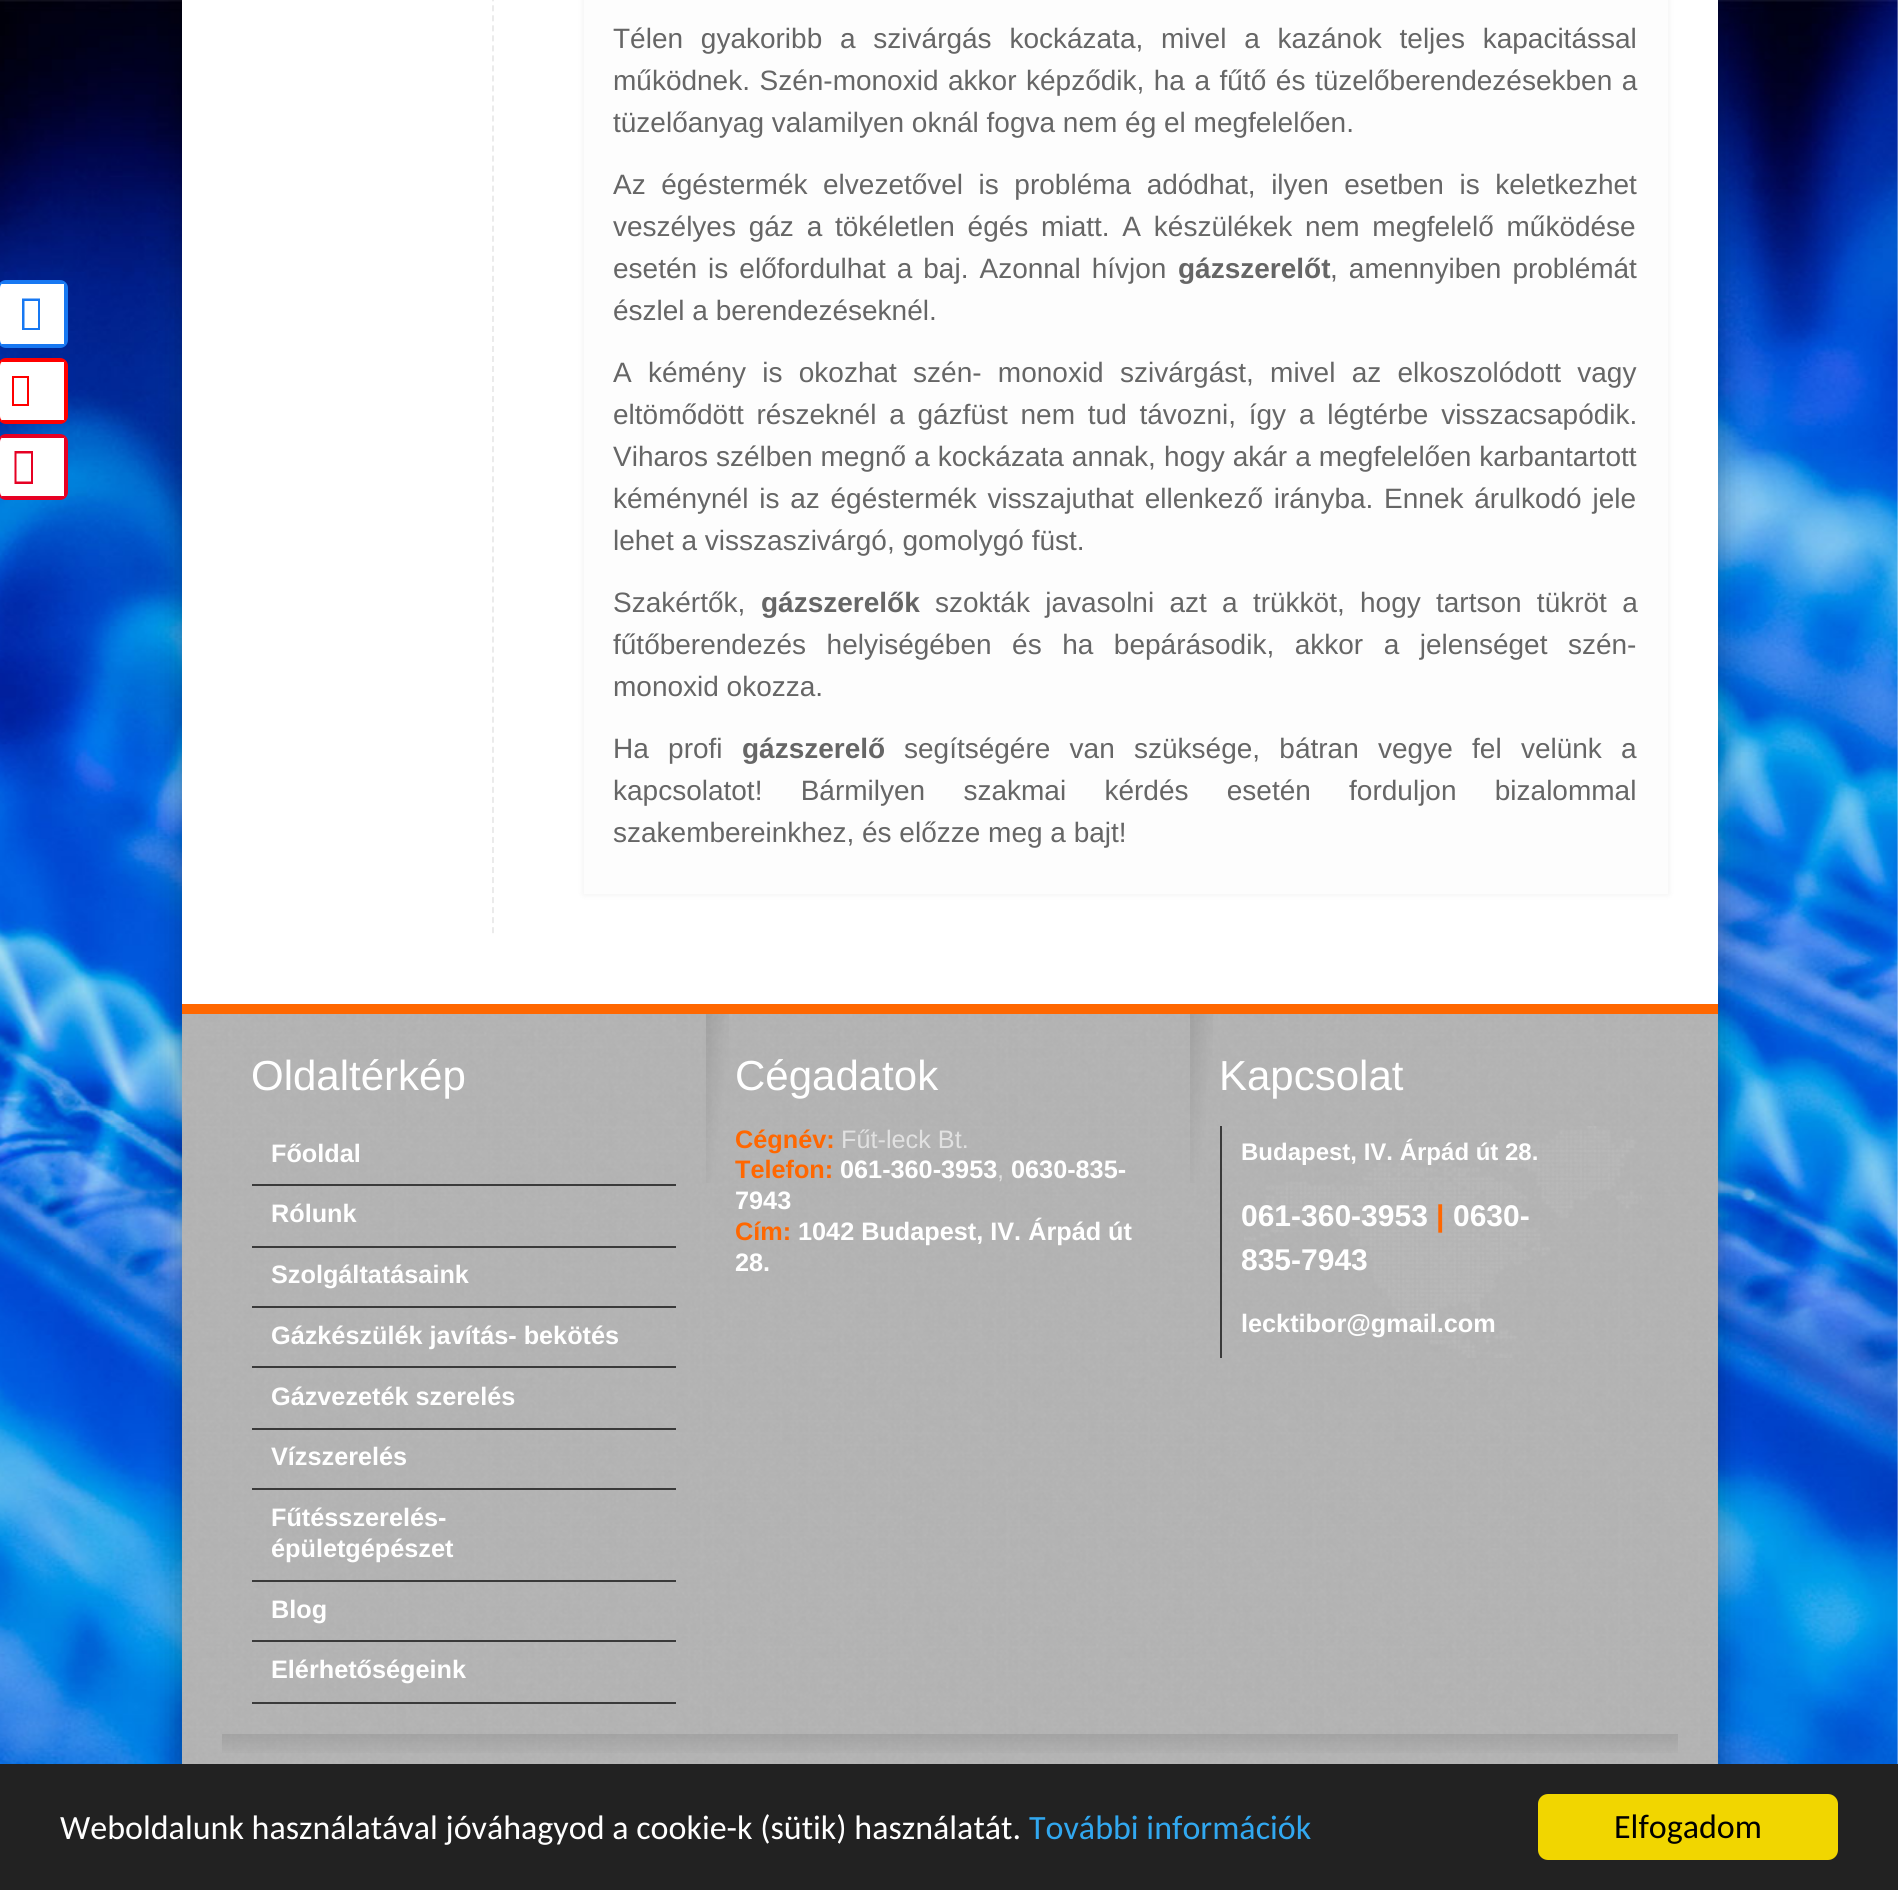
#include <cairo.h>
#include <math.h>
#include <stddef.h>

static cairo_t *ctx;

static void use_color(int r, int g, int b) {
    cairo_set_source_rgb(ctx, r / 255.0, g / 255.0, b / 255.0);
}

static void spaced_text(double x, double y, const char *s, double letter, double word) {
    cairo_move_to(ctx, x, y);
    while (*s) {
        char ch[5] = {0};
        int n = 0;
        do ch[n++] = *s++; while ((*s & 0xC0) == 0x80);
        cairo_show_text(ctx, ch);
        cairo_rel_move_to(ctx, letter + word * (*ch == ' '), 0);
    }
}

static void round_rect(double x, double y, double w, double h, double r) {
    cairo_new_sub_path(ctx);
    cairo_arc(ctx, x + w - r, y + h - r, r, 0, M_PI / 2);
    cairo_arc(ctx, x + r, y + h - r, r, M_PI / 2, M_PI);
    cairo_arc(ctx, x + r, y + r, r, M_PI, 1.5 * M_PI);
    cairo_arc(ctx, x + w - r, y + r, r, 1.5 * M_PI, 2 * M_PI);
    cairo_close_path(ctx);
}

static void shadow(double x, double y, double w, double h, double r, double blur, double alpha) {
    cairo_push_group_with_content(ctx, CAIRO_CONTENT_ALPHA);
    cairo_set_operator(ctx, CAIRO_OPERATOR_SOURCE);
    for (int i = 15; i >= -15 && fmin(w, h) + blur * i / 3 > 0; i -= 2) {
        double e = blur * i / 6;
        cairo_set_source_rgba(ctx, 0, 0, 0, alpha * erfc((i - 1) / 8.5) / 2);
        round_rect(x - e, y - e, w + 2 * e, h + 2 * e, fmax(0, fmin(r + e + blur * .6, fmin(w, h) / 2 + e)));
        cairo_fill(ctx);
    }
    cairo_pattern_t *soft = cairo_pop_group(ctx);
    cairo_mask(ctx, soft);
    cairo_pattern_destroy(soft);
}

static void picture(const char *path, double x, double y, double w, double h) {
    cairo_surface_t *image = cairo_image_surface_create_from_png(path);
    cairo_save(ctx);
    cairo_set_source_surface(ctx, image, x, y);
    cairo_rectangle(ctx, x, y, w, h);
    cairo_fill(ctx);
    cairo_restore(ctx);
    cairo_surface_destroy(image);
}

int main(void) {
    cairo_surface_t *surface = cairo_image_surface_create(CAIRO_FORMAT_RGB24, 1898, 1890);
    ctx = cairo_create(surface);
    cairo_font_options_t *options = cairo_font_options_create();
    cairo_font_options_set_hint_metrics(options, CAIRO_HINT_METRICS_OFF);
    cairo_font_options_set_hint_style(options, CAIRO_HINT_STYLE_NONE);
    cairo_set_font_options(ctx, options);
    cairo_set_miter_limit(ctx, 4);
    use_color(248, 248, 248);
    cairo_paint(ctx);
    picture("img1.png", 0, 0, 1898, 1764);
    use_color(255, 255, 255);
    round_rect(-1, 281, 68, 66, 7);
    cairo_fill_preserve(ctx);
    use_color(23, 120, 242);
    cairo_stroke(ctx);
    cairo_rectangle(ctx, 2, 282, 62, 2);
    cairo_fill(ctx);
    cairo_rectangle(ctx, 64, 284, 2, 60);
    cairo_fill(ctx);
    cairo_rectangle(ctx, 2, 344, 62, 2);
    cairo_fill(ctx);
    cairo_new_path(ctx);
    cairo_move_to(ctx, 22, 330);
    cairo_line_to(ctx, 22, 298.5);
    cairo_line_to(ctx, 40, 298.5);
    cairo_line_to(ctx, 40, 330);
    cairo_close_path(ctx);
    cairo_move_to(ctx, 24.5, 328);
    cairo_line_to(ctx, 38, 328);
    cairo_line_to(ctx, 38, 301);
    cairo_line_to(ctx, 24.5, 301);
    cairo_close_path(ctx);
    cairo_fill(ctx);
    use_color(0, 0, 0);
    shadow(182, -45, 1536, 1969, 0, 15, 0.3);
    use_color(255, 255, 255);
    cairo_rectangle(ctx, 182, 0, 1536, 1004);
    cairo_fill(ctx);
    cairo_new_path(ctx);
    cairo_move_to(ctx, 493, -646);
    cairo_line_to(ctx, 493, 934);
    use_color(235, 235, 235);
    cairo_set_dash(ctx, (double[]){6, 4.02}, 2, 0);
    cairo_stroke(ctx);
    use_color(0, 0, 0);
    shadow(584, -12, 1084, 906, 0, 4, 0.07);
    use_color(253, 253, 253);
    cairo_rectangle(ctx, 584, 0, 1084, 894);
    cairo_fill(ctx);
    cairo_select_font_face(ctx, "Liberation Sans", CAIRO_FONT_SLANT_NORMAL, CAIRO_FONT_WEIGHT_NORMAL);
    cairo_set_font_size(ctx, 28);
    use_color(102, 102, 102);
    spaced_text(613, 48, "Télen gyakoribb a szivárgás kockázata, mivel a kazánok teljes kapacitással", 0, 10);
    spaced_text(613, 90, "működnek. Szén-monoxid akkor képződik, ha a fűtő és tüzelőberendezésekben a", 0, 1.75);
    cairo_move_to(ctx, 613, 132);
    cairo_show_text(ctx, "tüzelőanyag valamilyen oknál fogva nem ég el megfelelően.");
    spaced_text(613, 194, "Az égéstermék elvezetővel is probléma adódhat, ilyen esetben is keletkezhet", 0, 7.75);
    spaced_text(613, 236, "veszélyes gáz a tökéletlen égés miatt. A készülékek nem megfelelő működése", 0, 5);
    spaced_text(613, 278, "esetén is előfordulhat a baj. Azonnal hívjon", 0, 3.25);
    cairo_select_font_face(ctx, "Liberation Sans", CAIRO_FONT_SLANT_NORMAL, CAIRO_FONT_WEIGHT_BOLD);
    cairo_move_to(ctx, 1178, 278);
    cairo_show_text(ctx, "gázszerelőt");
    cairo_select_font_face(ctx, "Liberation Sans", CAIRO_FONT_SLANT_NORMAL, CAIRO_FONT_WEIGHT_NORMAL);
    spaced_text(1330, 278, ", amennyiben problémát", 0, 3.25);
    cairo_move_to(ctx, 613, 320);
    cairo_show_text(ctx, "észlel a berendezéseknél.");
    spaced_text(613, 382, "A kémény is okozhat szén- monoxid szivárgást, mivel az elkoszolódott vagy", 0, 8.5);
    spaced_text(613, 424, "eltömődött részeknél a gázfüst nem tud távozni, így a légtérbe visszacsapódik.", 0, 5);
    spaced_text(613, 466, "Viharos szélben megnő a kockázata annak, hogy akár a megfelelően karbantartott", 0, 0.25);
    spaced_text(613, 508, "kéménynél is az égéstermék visszajuthat ellenkező irányba. Ennek árulkodó jele", 0, 3);
    cairo_move_to(ctx, 613, 550);
    cairo_show_text(ctx, "lehet a visszaszivárgó, gomolygó füst.");
    cairo_move_to(ctx, 613, 612);
    cairo_show_text(ctx, "Szakértők,");
    cairo_select_font_face(ctx, "Liberation Sans", CAIRO_FONT_SLANT_NORMAL, CAIRO_FONT_WEIGHT_BOLD);
    cairo_move_to(ctx, 761, 612);
    cairo_show_text(ctx, "gázszerelők");
    cairo_select_font_face(ctx, "Liberation Sans", CAIRO_FONT_SLANT_NORMAL, CAIRO_FONT_WEIGHT_NORMAL);
    spaced_text(935, 612, "szokták javasolni azt a trükköt, hogy tartson tükröt a", 0, 7.5);
    spaced_text(613, 654, "fűtőberendezés helyiségében és ha bepárásodik, akkor a jelenséget szén-", 0, 12.75);
    cairo_move_to(ctx, 613, 696);
    cairo_show_text(ctx, "monoxid okozza.");
    spaced_text(613, 758, "Ha profi", 0, 11.5);
    cairo_select_font_face(ctx, "Liberation Sans", CAIRO_FONT_SLANT_NORMAL, CAIRO_FONT_WEIGHT_BOLD);
    cairo_move_to(ctx, 742, 758);
    cairo_show_text(ctx, "gázszerelő");
    cairo_select_font_face(ctx, "Liberation Sans", CAIRO_FONT_SLANT_NORMAL, CAIRO_FONT_WEIGHT_NORMAL);
    spaced_text(904, 758, "segítségére van szüksége, bátran vegye fel velünk a", 0, 11.5);
    spaced_text(613, 800, "kapcsolatot! Bármilyen szakmai kérdés esetén forduljon bizalommal", 0, 30.5);
    cairo_move_to(ctx, 613, 842);
    cairo_show_text(ctx, "szakembereinkhez, és előzze meg a bajt!");
    use_color(210, 210, 210);
    cairo_rectangle(ctx, 182, 1014, 1536, 750);
    cairo_fill(ctx);
    picture("img2.png", 182, 1014, 1536, 750);
    use_color(255, 103, 0);
    cairo_rectangle(ctx, 182, 1004, 1536, 10);
    cairo_fill(ctx);
    cairo_set_font_size(ctx, 42);
    use_color(255, 255, 255);
    cairo_move_to(ctx, 251, 1090);
    cairo_show_text(ctx, "Oldaltérkép");
    use_color(58, 58, 58);
    cairo_rectangle(ctx, 252, 1184, 424, 2);
    cairo_fill(ctx);
    cairo_select_font_face(ctx, "Liberation Sans", CAIRO_FONT_SLANT_NORMAL, CAIRO_FONT_WEIGHT_BOLD);
    cairo_set_font_size(ctx, 25.25);
    use_color(255, 255, 255);
    cairo_move_to(ctx, 271, 1162);
    cairo_show_text(ctx, "Főoldal");
    use_color(58, 58, 58);
    cairo_rectangle(ctx, 252, 1246, 424, 2);
    cairo_fill(ctx);
    use_color(255, 255, 255);
    cairo_move_to(ctx, 271, 1222);
    cairo_show_text(ctx, "Rólunk");
    use_color(58, 58, 58);
    cairo_rectangle(ctx, 252, 1306, 424, 2);
    cairo_fill(ctx);
    use_color(255, 255, 255);
    cairo_move_to(ctx, 271, 1283);
    cairo_show_text(ctx, "Szolgáltatásaink");
    use_color(58, 58, 58);
    cairo_rectangle(ctx, 252, 1366, 424, 2);
    cairo_fill(ctx);
    use_color(255, 255, 255);
    cairo_move_to(ctx, 271, 1344);
    cairo_show_text(ctx, "Gázkészülék javítás- bekötés");
    use_color(58, 58, 58);
    cairo_rectangle(ctx, 252, 1428, 424, 2);
    cairo_fill(ctx);
    use_color(255, 255, 255);
    cairo_move_to(ctx, 271, 1405);
    cairo_show_text(ctx, "Gázvezeték szerelés");
    use_color(58, 58, 58);
    cairo_rectangle(ctx, 252, 1488, 424, 2);
    cairo_fill(ctx);
    use_color(255, 255, 255);
    cairo_move_to(ctx, 271, 1465);
    cairo_show_text(ctx, "Vízszerelés");
    use_color(58, 58, 58);
    cairo_rectangle(ctx, 252, 1580, 424, 2);
    cairo_fill(ctx);
    use_color(255, 255, 255);
    cairo_move_to(ctx, 271, 1526);
    cairo_show_text(ctx, "Fűtésszerelés-");
    cairo_move_to(ctx, 271, 1557);
    cairo_show_text(ctx, "épületgépészet");
    use_color(58, 58, 58);
    cairo_rectangle(ctx, 252, 1640, 424, 2);
    cairo_fill(ctx);
    use_color(255, 255, 255);
    cairo_move_to(ctx, 271, 1618);
    cairo_show_text(ctx, "Blog");
    use_color(58, 58, 58);
    cairo_rectangle(ctx, 252, 1702, 424, 2);
    cairo_fill(ctx);
    use_color(255, 255, 255);
    cairo_move_to(ctx, 271, 1678);
    cairo_show_text(ctx, "Elérhetőségeink");
    picture("img3.png", 706, 1014, 23, 169);
    cairo_select_font_face(ctx, "Liberation Sans", CAIRO_FONT_SLANT_NORMAL, CAIRO_FONT_WEIGHT_NORMAL);
    cairo_set_font_size(ctx, 42);
    cairo_move_to(ctx, 735, 1090);
    cairo_show_text(ctx, "Cégadatok");
    cairo_select_font_face(ctx, "Liberation Sans", CAIRO_FONT_SLANT_NORMAL, CAIRO_FONT_WEIGHT_BOLD);
    cairo_set_font_size(ctx, 25.25);
    use_color(255, 103, 0);
    cairo_move_to(ctx, 735, 1148);
    cairo_show_text(ctx, "Cégnév:");
    cairo_select_font_face(ctx, "Liberation Sans", CAIRO_FONT_SLANT_NORMAL, CAIRO_FONT_WEIGHT_NORMAL);
    use_color(225, 225, 225);
    cairo_move_to(ctx, 841, 1148);
    cairo_show_text(ctx, "Fűt-leck Bt.");
    cairo_select_font_face(ctx, "Liberation Sans", CAIRO_FONT_SLANT_NORMAL, CAIRO_FONT_WEIGHT_BOLD);
    use_color(255, 103, 0);
    cairo_move_to(ctx, 735, 1178);
    cairo_show_text(ctx, "Telefon:");
    use_color(255, 255, 255);
    cairo_move_to(ctx, 840, 1178);
    cairo_show_text(ctx, "061-360-3953");
    cairo_select_font_face(ctx, "Liberation Sans", CAIRO_FONT_SLANT_NORMAL, CAIRO_FONT_WEIGHT_NORMAL);
    use_color(225, 225, 225);
    cairo_move_to(ctx, 997, 1178);
    cairo_show_text(ctx, ",");
    cairo_select_font_face(ctx, "Liberation Sans", CAIRO_FONT_SLANT_NORMAL, CAIRO_FONT_WEIGHT_BOLD);
    use_color(255, 255, 255);
    cairo_move_to(ctx, 1011, 1178);
    cairo_show_text(ctx, "0630-835-");
    cairo_move_to(ctx, 735, 1209);
    cairo_show_text(ctx, "7943");
    use_color(255, 103, 0);
    cairo_move_to(ctx, 735, 1240);
    cairo_show_text(ctx, "Cím:");
    use_color(255, 255, 255);
    cairo_move_to(ctx, 798, 1240);
    cairo_show_text(ctx, "1042 Budapest, IV. Árpád út");
    cairo_move_to(ctx, 735, 1271);
    cairo_show_text(ctx, "28.");
    picture("img4.png", 1190, 1014, 23, 169);
    cairo_select_font_face(ctx, "Liberation Sans", CAIRO_FONT_SLANT_NORMAL, CAIRO_FONT_WEIGHT_NORMAL);
    cairo_set_font_size(ctx, 42);
    cairo_move_to(ctx, 1219, 1090);
    cairo_show_text(ctx, "Kapcsolat");
    picture("img5.png", 1244, 1126, 398, 232);
    use_color(58, 58, 58);
    cairo_rectangle(ctx, 1220, 1126, 2, 232);
    cairo_fill(ctx);
    cairo_select_font_face(ctx, "Liberation Sans", CAIRO_FONT_SLANT_NORMAL, CAIRO_FONT_WEIGHT_BOLD);
    cairo_set_font_size(ctx, 24);
    use_color(255, 255, 255);
    cairo_move_to(ctx, 1241, 1160);
    cairo_show_text(ctx, "Budapest, IV. Árpád út 28.");
    cairo_set_font_size(ctx, 30);
    cairo_move_to(ctx, 1241, 1226);
    cairo_show_text(ctx, "061-360-3953");
    use_color(255, 103, 0);
    cairo_move_to(ctx, 1436, 1226);
    cairo_show_text(ctx, "|");
    use_color(255, 255, 255);
    cairo_move_to(ctx, 1453, 1226);
    cairo_show_text(ctx, "0630-");
    cairo_move_to(ctx, 1241, 1270);
    cairo_show_text(ctx, "835-7943");
    cairo_set_font_size(ctx, 25.25);
    cairo_move_to(ctx, 1241, 1332);
    cairo_show_text(ctx, "lecktibor@gmail.com");
    picture("img6.png", 222, 1734, 1456, 19);
    round_rect(-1, 359, 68, 64, 7);
    cairo_fill_preserve(ctx);
    use_color(255, 0, 0);
    cairo_set_dash(ctx, NULL, 0, 0);
    cairo_stroke(ctx);
    cairo_rectangle(ctx, 2, 360, 62, 2);
    cairo_fill(ctx);
    cairo_rectangle(ctx, 64, 362, 2, 58);
    cairo_fill(ctx);
    cairo_rectangle(ctx, 2, 420, 62, 2);
    cairo_fill(ctx);
    cairo_new_path(ctx);
    cairo_move_to(ctx, 12, 406);
    cairo_line_to(ctx, 12, 376);
    cairo_line_to(ctx, 29, 376);
    cairo_line_to(ctx, 29, 406);
    cairo_close_path(ctx);
    cairo_move_to(ctx, 14, 404);
    cairo_line_to(ctx, 27, 404);
    cairo_line_to(ctx, 27, 378);
    cairo_line_to(ctx, 14, 378);
    cairo_close_path(ctx);
    cairo_fill(ctx);
    use_color(255, 255, 255);
    round_rect(-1, 435, 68, 64, 7);
    cairo_fill_preserve(ctx);
    use_color(230, 0, 35);
    cairo_stroke(ctx);
    cairo_rectangle(ctx, 2, 436, 62, 2);
    cairo_fill(ctx);
    cairo_rectangle(ctx, 64, 438, 2, 58);
    cairo_fill(ctx);
    cairo_rectangle(ctx, 2, 496, 62, 2);
    cairo_fill(ctx);
    cairo_new_path(ctx);
    cairo_move_to(ctx, 14.5, 484);
    cairo_line_to(ctx, 14.5, 451);
    cairo_line_to(ctx, 33, 451);
    cairo_line_to(ctx, 33, 484);
    cairo_close_path(ctx);
    cairo_move_to(ctx, 16.5, 481.5);
    cairo_line_to(ctx, 31, 481.5);
    cairo_line_to(ctx, 31, 453.5);
    cairo_line_to(ctx, 16.5, 453.5);
    cairo_close_path(ctx);
    cairo_fill(ctx);
    use_color(34, 34, 34);
    cairo_rectangle(ctx, 0, 1764, 1898, 126);
    cairo_fill(ctx);
    cairo_select_font_face(ctx, "Carlito", CAIRO_FONT_SLANT_NORMAL, CAIRO_FONT_WEIGHT_NORMAL);
    cairo_set_font_size(ctx, 34);
    use_color(255, 255, 255);
    cairo_move_to(ctx, 60, 1839);
    cairo_show_text(ctx, "Weboldalunk használatával jóváhagyod a cookie-k (sütik) használatát.");
    use_color(49, 168, 240);
    cairo_move_to(ctx, 1029, 1839);
    cairo_show_text(ctx, "További információk");
    use_color(241, 214, 0);
    round_rect(1538, 1794, 300, 66, 10);
    cairo_fill(ctx);
    use_color(0, 0, 0);
    cairo_move_to(ctx, 1614, 1838);
    cairo_show_text(ctx, "Elfogadom");
    cairo_surface_write_to_png(surface, "result.png");
    cairo_font_options_destroy(options);
    cairo_destroy(ctx);
    cairo_surface_destroy(surface);
    return 0;
}
